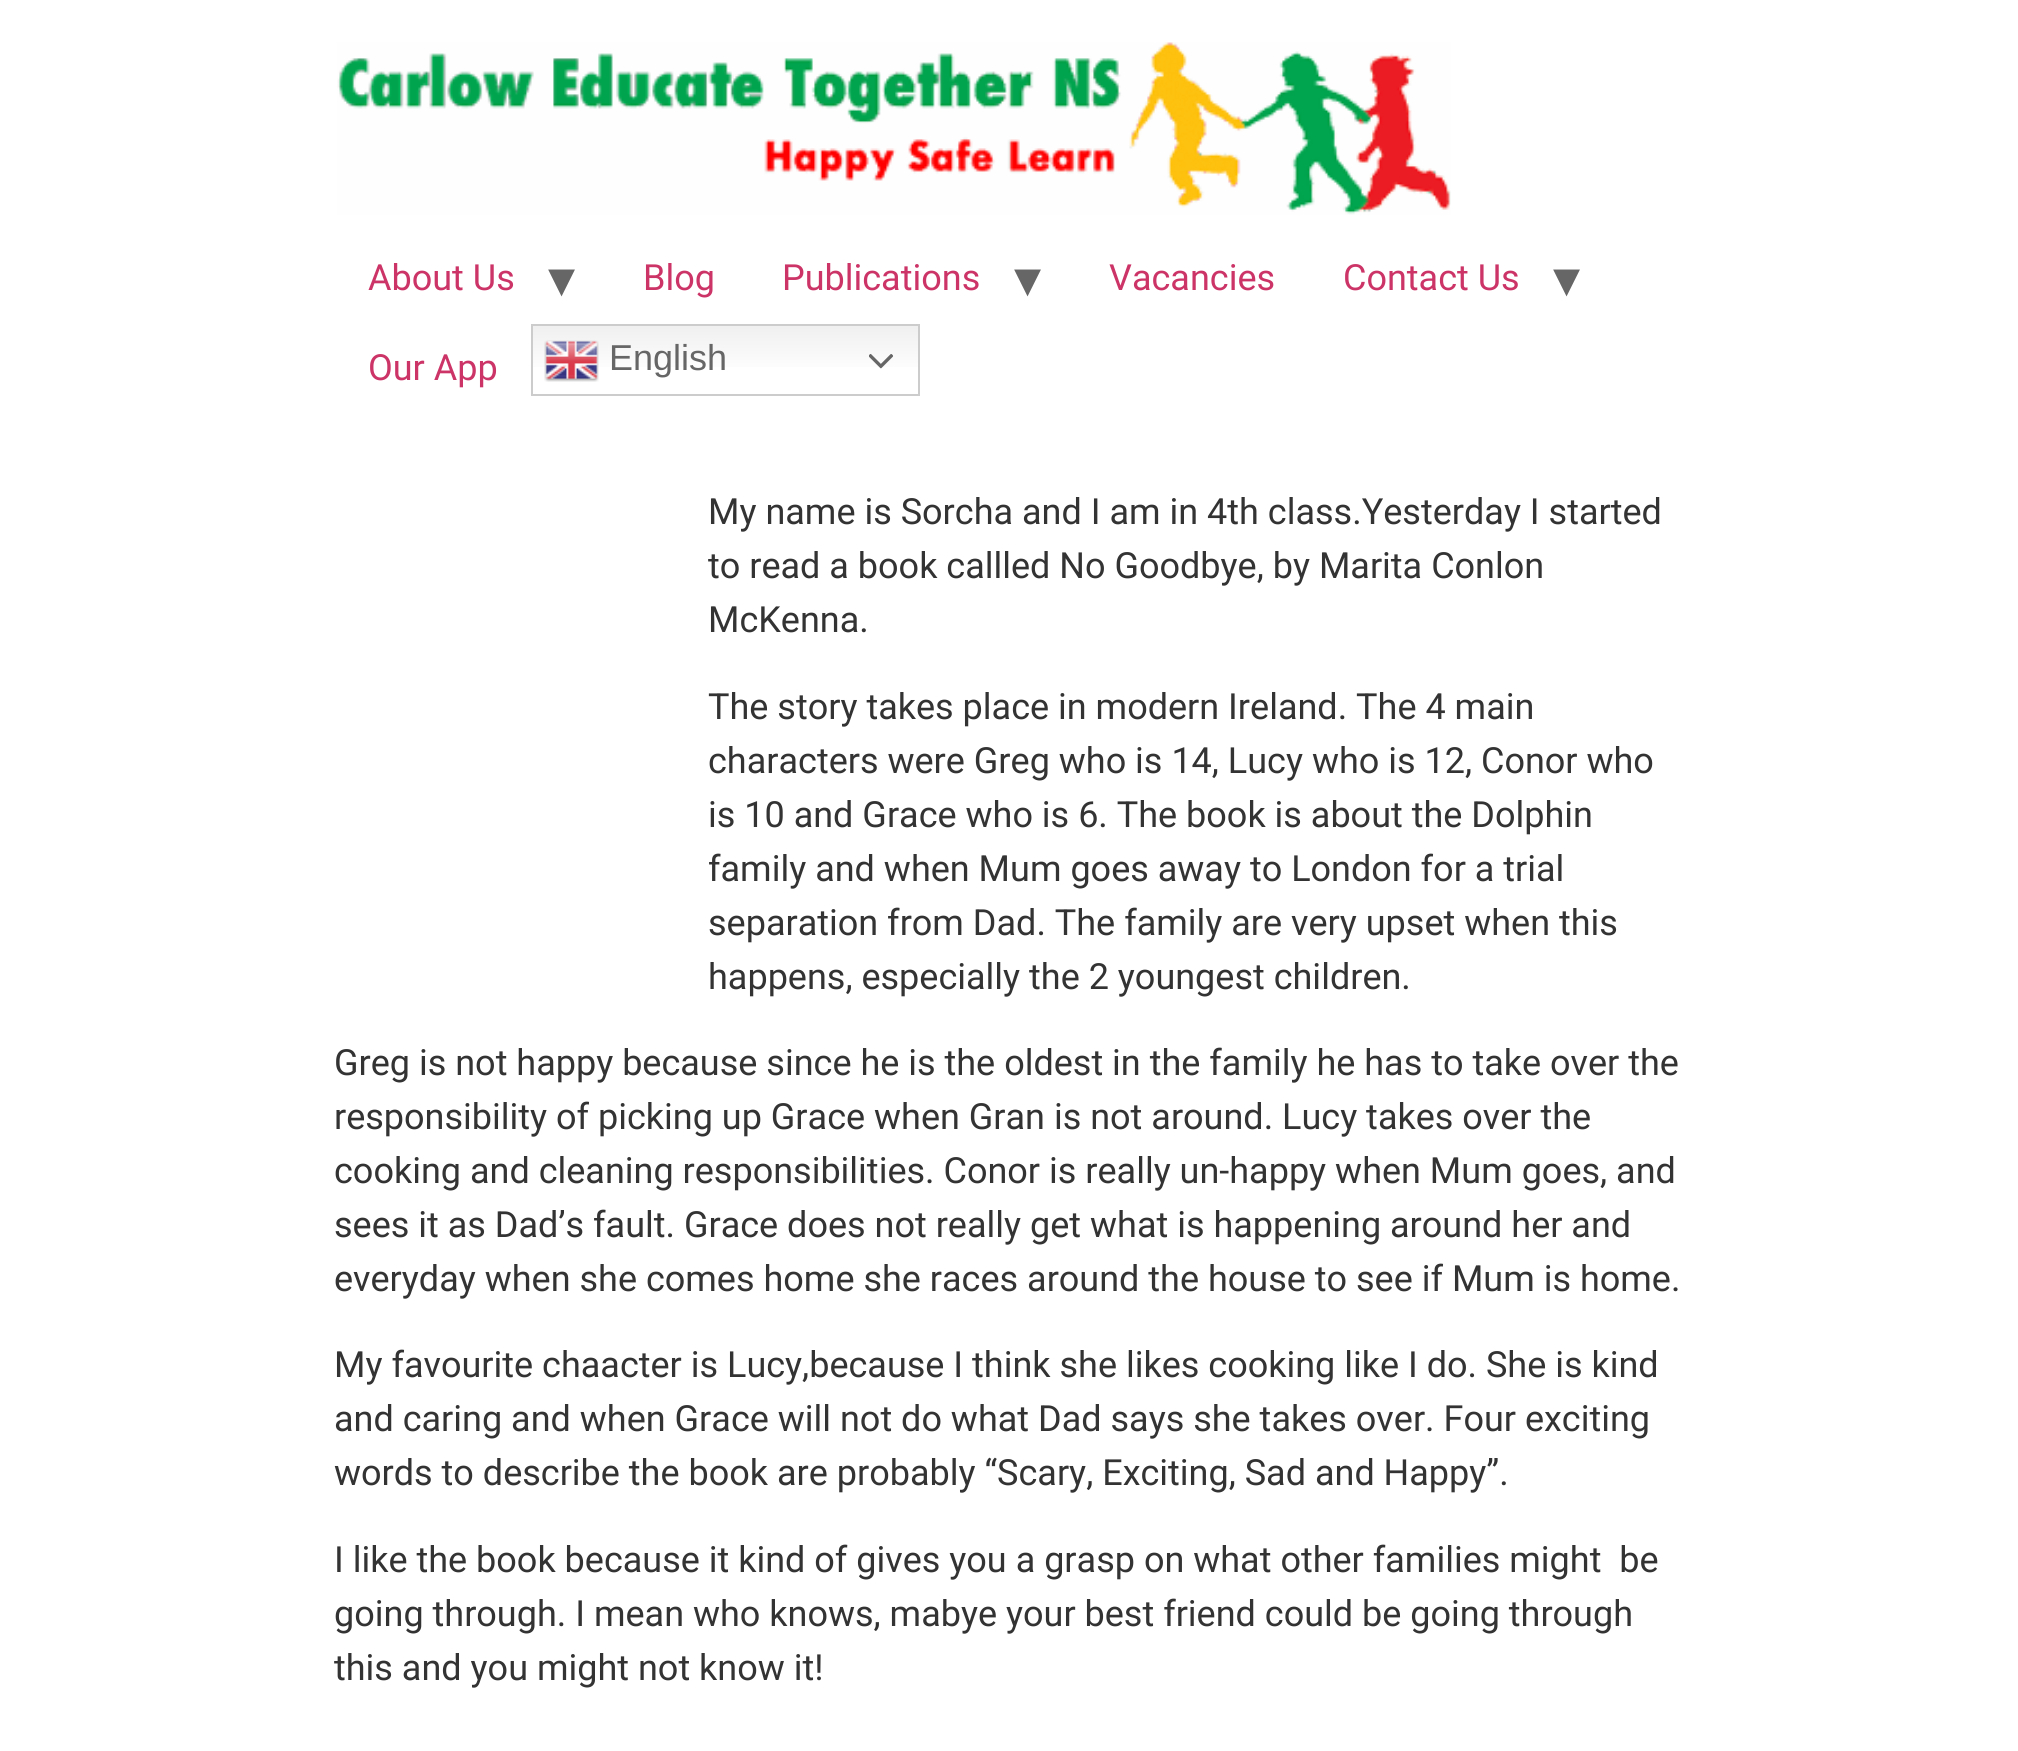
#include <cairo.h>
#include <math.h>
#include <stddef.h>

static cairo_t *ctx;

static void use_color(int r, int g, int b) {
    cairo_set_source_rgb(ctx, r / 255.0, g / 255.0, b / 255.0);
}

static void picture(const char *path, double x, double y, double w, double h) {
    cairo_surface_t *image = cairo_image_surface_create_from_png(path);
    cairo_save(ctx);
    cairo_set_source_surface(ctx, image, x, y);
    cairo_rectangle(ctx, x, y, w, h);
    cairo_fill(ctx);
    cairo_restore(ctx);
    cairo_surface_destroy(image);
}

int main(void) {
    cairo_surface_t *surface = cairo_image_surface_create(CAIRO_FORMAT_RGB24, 2018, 1751);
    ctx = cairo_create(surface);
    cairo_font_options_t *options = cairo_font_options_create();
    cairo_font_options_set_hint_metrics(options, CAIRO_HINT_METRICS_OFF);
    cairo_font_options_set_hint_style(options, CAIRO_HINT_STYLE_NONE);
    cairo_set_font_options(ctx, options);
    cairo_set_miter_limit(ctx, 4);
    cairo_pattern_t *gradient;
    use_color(255, 255, 255);
    cairo_paint(ctx);
    picture("img1.png", 337, 42, 1114, 173);
    cairo_select_font_face(ctx, "Roboto", CAIRO_FONT_SLANT_NORMAL, CAIRO_FONT_WEIGHT_NORMAL);
    cairo_set_font_size(ctx, 36);
    use_color(204, 51, 102);
    cairo_move_to(ctx, 368, 290);
    cairo_show_text(ctx, "About Us");
    cairo_select_font_face(ctx, "DejaVu Sans", CAIRO_FONT_SLANT_NORMAL, CAIRO_FONT_WEIGHT_NORMAL);
    cairo_set_font_size(ctx, 54);
    use_color(102, 102, 102);
    cairo_move_to(ctx, 548, 297);
    cairo_show_text(ctx, "▾");
    cairo_select_font_face(ctx, "Roboto", CAIRO_FONT_SLANT_NORMAL, CAIRO_FONT_WEIGHT_NORMAL);
    cairo_set_font_size(ctx, 36);
    use_color(204, 51, 102);
    cairo_move_to(ctx, 643, 290);
    cairo_show_text(ctx, "Blog");
    cairo_move_to(ctx, 782, 290);
    cairo_show_text(ctx, "Publications");
    cairo_select_font_face(ctx, "DejaVu Sans", CAIRO_FONT_SLANT_NORMAL, CAIRO_FONT_WEIGHT_NORMAL);
    cairo_set_font_size(ctx, 54);
    use_color(102, 102, 102);
    cairo_move_to(ctx, 1014, 297);
    cairo_show_text(ctx, "▾");
    cairo_select_font_face(ctx, "Roboto", CAIRO_FONT_SLANT_NORMAL, CAIRO_FONT_WEIGHT_NORMAL);
    cairo_set_font_size(ctx, 36);
    use_color(204, 51, 102);
    cairo_move_to(ctx, 1109, 290);
    cairo_show_text(ctx, "Vacancies");
    cairo_move_to(ctx, 1343, 290);
    cairo_show_text(ctx, "Contact Us");
    cairo_select_font_face(ctx, "DejaVu Sans", CAIRO_FONT_SLANT_NORMAL, CAIRO_FONT_WEIGHT_NORMAL);
    cairo_set_font_size(ctx, 54);
    use_color(102, 102, 102);
    cairo_move_to(ctx, 1553, 297);
    cairo_show_text(ctx, "▾");
    cairo_select_font_face(ctx, "Roboto", CAIRO_FONT_SLANT_NORMAL, CAIRO_FONT_WEIGHT_NORMAL);
    cairo_set_font_size(ctx, 36);
    use_color(204, 51, 102);
    cairo_move_to(ctx, 368, 380);
    cairo_show_text(ctx, "Our App");
    gradient = cairo_pattern_create_linear(726, 324, 726, 396);
    cairo_pattern_add_color_stop_rgba(gradient, 0, 0.937, 0.937, 0.937, 1);
    cairo_pattern_add_color_stop_rgba(gradient, 0.7, 1, 1, 1, 1);
    cairo_set_source(ctx, gradient);
    cairo_pattern_destroy(gradient);
    cairo_rectangle(ctx, 533, 326, 385, 41);
    cairo_fill(ctx);
    cairo_rectangle(ctx, 532, 325, 387, 70);
    use_color(204, 204, 204);
    cairo_stroke(ctx);
    picture("img2.png", 544, 340, 55, 42);
    cairo_select_font_face(ctx, "Liberation Sans", CAIRO_FONT_SLANT_NORMAL, CAIRO_FONT_WEIGHT_NORMAL);
    use_color(102, 102, 102);
    cairo_move_to(ctx, 609, 370);
    cairo_show_text(ctx, "English");
    picture("img3.png", 869, 354, 24, 15);
    cairo_select_font_face(ctx, "Roboto", CAIRO_FONT_SLANT_NORMAL, CAIRO_FONT_WEIGHT_NORMAL);
    use_color(51, 51, 51);
    cairo_move_to(ctx, 708, 524);
    cairo_show_text(ctx, "My name is Sorcha and I am in 4th class.Yesterday I started");
    cairo_move_to(ctx, 708, 578);
    cairo_show_text(ctx, "to read a book callled No Goodbye, by Marita Conlon");
    cairo_move_to(ctx, 708, 632);
    cairo_show_text(ctx, "McKenna.");
    cairo_move_to(ctx, 708, 719);
    cairo_show_text(ctx, "The story takes place in modern Ireland. The 4 main");
    cairo_move_to(ctx, 708, 773);
    cairo_show_text(ctx, "characters were Greg who is 14, Lucy who is 12, Conor who");
    cairo_move_to(ctx, 708, 827);
    cairo_show_text(ctx, "is 10 and Grace who is 6. The book is about the Dolphin");
    cairo_move_to(ctx, 708, 881);
    cairo_show_text(ctx, "family and when Mum goes away to London for a trial");
    cairo_move_to(ctx, 708, 935);
    cairo_show_text(ctx, "separation from Dad. The family are very upset when this");
    cairo_move_to(ctx, 708, 989);
    cairo_show_text(ctx, "happens, especially the 2 youngest children.");
    cairo_move_to(ctx, 334, 1075);
    cairo_show_text(ctx, "Greg is not happy because since he is the oldest in the family he has to take over the");
    cairo_move_to(ctx, 334, 1129);
    cairo_show_text(ctx, "responsibility of picking up Grace when Gran is not around. Lucy takes over the");
    cairo_move_to(ctx, 334, 1183);
    cairo_show_text(ctx, "cooking and cleaning responsibilities. Conor is really un-happy when Mum goes, and");
    cairo_move_to(ctx, 334, 1237);
    cairo_show_text(ctx, "sees it as Dad’s fault. Grace does not really get what is happening around her and");
    cairo_move_to(ctx, 334, 1291);
    cairo_show_text(ctx, "everyday when she comes home she races around the house to see if Mum is home.");
    cairo_move_to(ctx, 334, 1377);
    cairo_show_text(ctx, "My favourite chaacter is Lucy,because I think she likes cooking like I do. She is kind");
    cairo_move_to(ctx, 334, 1431);
    cairo_show_text(ctx, "and caring and when Grace will not do what Dad says she takes over. Four exciting");
    cairo_move_to(ctx, 334, 1485);
    cairo_show_text(ctx, "words to describe the book are probably “Scary, Exciting, Sad and Happy”.");
    cairo_move_to(ctx, 334, 1572);
    cairo_show_text(ctx, "I like the book because it kind of gives you a grasp on what other families might  be");
    cairo_move_to(ctx, 334, 1626);
    cairo_show_text(ctx, "going through. I mean who knows, mabye your best friend could be going through");
    cairo_move_to(ctx, 334, 1680);
    cairo_show_text(ctx, "this and you might not know it!");
    cairo_surface_write_to_png(surface, "result.png");
    cairo_font_options_destroy(options);
    cairo_destroy(ctx);
    cairo_surface_destroy(surface);
    return 0;
}
